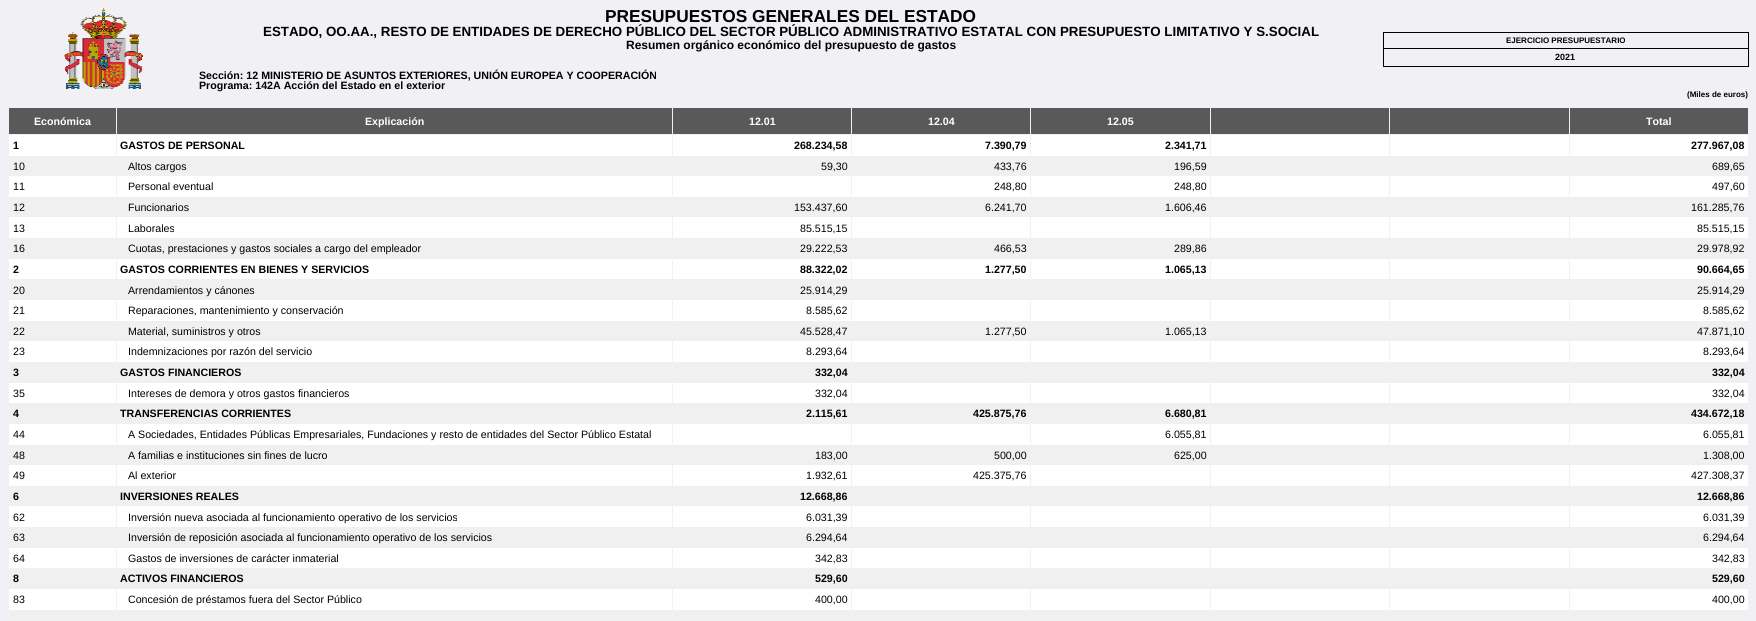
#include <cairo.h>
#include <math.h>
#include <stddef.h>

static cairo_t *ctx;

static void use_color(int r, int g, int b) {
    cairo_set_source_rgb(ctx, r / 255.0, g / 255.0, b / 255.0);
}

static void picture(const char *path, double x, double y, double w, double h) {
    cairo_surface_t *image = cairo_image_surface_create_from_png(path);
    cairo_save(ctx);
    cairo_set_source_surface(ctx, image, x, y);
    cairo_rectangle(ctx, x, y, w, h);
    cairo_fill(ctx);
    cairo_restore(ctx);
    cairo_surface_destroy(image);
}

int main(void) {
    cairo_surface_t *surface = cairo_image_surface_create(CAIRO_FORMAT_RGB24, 1756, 621);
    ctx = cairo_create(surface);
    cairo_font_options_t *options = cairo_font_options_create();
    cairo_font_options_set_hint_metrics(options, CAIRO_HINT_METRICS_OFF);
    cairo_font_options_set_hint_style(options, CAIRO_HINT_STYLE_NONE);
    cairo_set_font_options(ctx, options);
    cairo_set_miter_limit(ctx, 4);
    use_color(240, 240, 245);
    cairo_paint(ctx);
    picture("img1.png", 64, 8, 79, 81);
    cairo_select_font_face(ctx, "Liberation Sans", CAIRO_FONT_SLANT_NORMAL, CAIRO_FONT_WEIGHT_BOLD);
    cairo_set_font_size(ctx, 17.3);
    use_color(0, 0, 0);
    cairo_move_to(ctx, 605, 22);
    cairo_show_text(ctx, "PRESUPUESTOS GENERALES DEL ESTADO");
    cairo_set_font_size(ctx, 13.33);
    cairo_move_to(ctx, 263, 36);
    cairo_show_text(ctx, "ESTADO, OO.AA., RESTO DE ENTIDADES DE DERECHO PÚBLICO DEL SECTOR PÚBLICO ADMINISTRATIVO ESTATAL CON PRESUPUESTO LIMITATIVO Y S.SOCIAL");
    cairo_set_font_size(ctx, 12);
    cairo_move_to(ctx, 626, 49);
    cairo_show_text(ctx, "Resumen orgánico económico del presupuesto de gastos");
    cairo_set_font_size(ctx, 10.65);
    cairo_move_to(ctx, 199, 79);
    cairo_show_text(ctx, "Sección: 12 MINISTERIO DE ASUNTOS EXTERIORES, UNIÓN EUROPEA Y COOPERACIÓN");
    cairo_move_to(ctx, 199, 89);
    cairo_show_text(ctx, "Programa: 142A Acción del Estado en el exterior");
    cairo_rectangle(ctx, 1383, 32, 366, 1);
    cairo_fill(ctx);
    cairo_rectangle(ctx, 1748, 32, 1, 35);
    cairo_fill(ctx);
    cairo_rectangle(ctx, 1383, 66, 366, 1);
    cairo_fill(ctx);
    cairo_rectangle(ctx, 1383, 32, 1, 35);
    cairo_fill(ctx);
    cairo_set_font_size(ctx, 8);
    cairo_move_to(ctx, 1506, 43);
    cairo_show_text(ctx, "EJERCICIO PRESUPUESTARIO");
    cairo_rectangle(ctx, 1383, 48, 366, 1);
    cairo_fill(ctx);
    cairo_set_font_size(ctx, 9);
    cairo_move_to(ctx, 1555, 60);
    cairo_show_text(ctx, "2021");
    cairo_set_font_size(ctx, 8);
    cairo_move_to(ctx, 1687, 97);
    cairo_show_text(ctx, "(Miles de euros)");
    use_color(89, 89, 89);
    cairo_rectangle(ctx, 9, 108, 1739, 26);
    cairo_fill(ctx);
    cairo_set_font_size(ctx, 10.65);
    use_color(255, 255, 255);
    cairo_move_to(ctx, 34, 125);
    cairo_show_text(ctx, "Económica");
    cairo_move_to(ctx, 365, 125);
    cairo_show_text(ctx, "Explicación");
    cairo_move_to(ctx, 749, 125);
    cairo_show_text(ctx, "12.01");
    cairo_move_to(ctx, 928, 125);
    cairo_show_text(ctx, "12.04");
    cairo_move_to(ctx, 1107, 125);
    cairo_show_text(ctx, "12.05");
    cairo_move_to(ctx, 1646, 125);
    cairo_show_text(ctx, "Total");
    use_color(240, 240, 240);
    cairo_rectangle(ctx, 9, 610, 1739, 11);
    cairo_fill(ctx);
    use_color(255, 255, 255);
    cairo_rectangle(ctx, 9, 135, 1739, 21);
    cairo_fill(ctx);
    use_color(240, 240, 240);
    cairo_rectangle(ctx, 9, 156, 1739, 20);
    cairo_fill(ctx);
    use_color(255, 255, 255);
    cairo_rectangle(ctx, 9, 176, 1739, 21);
    cairo_fill(ctx);
    use_color(240, 240, 240);
    cairo_rectangle(ctx, 9, 197, 1739, 20);
    cairo_fill(ctx);
    use_color(255, 255, 255);
    cairo_rectangle(ctx, 9, 217, 1739, 21);
    cairo_fill(ctx);
    use_color(240, 240, 240);
    cairo_rectangle(ctx, 9, 238, 1739, 21);
    cairo_fill(ctx);
    use_color(255, 255, 255);
    cairo_rectangle(ctx, 9, 259, 1739, 20);
    cairo_fill(ctx);
    use_color(240, 240, 240);
    cairo_rectangle(ctx, 9, 279, 1739, 21);
    cairo_fill(ctx);
    use_color(255, 255, 255);
    cairo_rectangle(ctx, 9, 300, 1739, 21);
    cairo_fill(ctx);
    use_color(240, 240, 240);
    cairo_rectangle(ctx, 9, 321, 1739, 20);
    cairo_fill(ctx);
    use_color(255, 255, 255);
    cairo_rectangle(ctx, 9, 341, 1739, 21);
    cairo_fill(ctx);
    use_color(240, 240, 240);
    cairo_rectangle(ctx, 9, 362, 1739, 21);
    cairo_fill(ctx);
    use_color(255, 255, 255);
    cairo_rectangle(ctx, 9, 383, 1739, 20);
    cairo_fill(ctx);
    use_color(240, 240, 240);
    cairo_rectangle(ctx, 9, 403, 1739, 21);
    cairo_fill(ctx);
    use_color(255, 255, 255);
    cairo_rectangle(ctx, 9, 424, 1739, 21);
    cairo_fill(ctx);
    use_color(240, 240, 240);
    cairo_rectangle(ctx, 9, 445, 1739, 20);
    cairo_fill(ctx);
    use_color(255, 255, 255);
    cairo_rectangle(ctx, 9, 465, 1739, 21);
    cairo_fill(ctx);
    use_color(240, 240, 240);
    cairo_rectangle(ctx, 9, 486, 1739, 20);
    cairo_fill(ctx);
    use_color(255, 255, 255);
    cairo_rectangle(ctx, 9, 506, 1739, 21);
    cairo_fill(ctx);
    use_color(240, 240, 240);
    cairo_rectangle(ctx, 9, 527, 1739, 21);
    cairo_fill(ctx);
    use_color(255, 255, 255);
    cairo_rectangle(ctx, 9, 548, 1739, 20);
    cairo_fill(ctx);
    use_color(240, 240, 240);
    cairo_rectangle(ctx, 9, 568, 1739, 21);
    cairo_fill(ctx);
    use_color(255, 255, 255);
    cairo_rectangle(ctx, 9, 589, 1739, 21);
    cairo_fill(ctx);
    use_color(240, 240, 245);
    cairo_rectangle(ctx, 116, 107, 1, 514);
    cairo_fill(ctx);
    cairo_rectangle(ctx, 672, 107, 1, 514);
    cairo_fill(ctx);
    cairo_rectangle(ctx, 851, 107, 1, 514);
    cairo_fill(ctx);
    cairo_rectangle(ctx, 1030, 107, 1, 514);
    cairo_fill(ctx);
    cairo_rectangle(ctx, 1210, 107, 1, 514);
    cairo_fill(ctx);
    cairo_rectangle(ctx, 1389, 107, 1, 514);
    cairo_fill(ctx);
    cairo_rectangle(ctx, 1569, 107, 1, 514);
    cairo_fill(ctx);
    use_color(0, 0, 0);
    cairo_move_to(ctx, 13, 149);
    cairo_show_text(ctx, "1");
    cairo_move_to(ctx, 120, 149);
    cairo_show_text(ctx, "GASTOS DE PERSONAL");
    cairo_move_to(ctx, 794, 149);
    cairo_show_text(ctx, "268.234,58");
    cairo_move_to(ctx, 985, 149);
    cairo_show_text(ctx, "7.390,79");
    cairo_move_to(ctx, 1165, 149);
    cairo_show_text(ctx, "2.341,71");
    cairo_move_to(ctx, 1691, 149);
    cairo_show_text(ctx, "277.967,08");
    cairo_select_font_face(ctx, "Liberation Sans", CAIRO_FONT_SLANT_NORMAL, CAIRO_FONT_WEIGHT_NORMAL);
    cairo_move_to(ctx, 13, 170);
    cairo_show_text(ctx, "10");
    cairo_move_to(ctx, 128, 170);
    cairo_show_text(ctx, "Altos cargos");
    cairo_move_to(ctx, 821, 170);
    cairo_show_text(ctx, "59,30");
    cairo_move_to(ctx, 994, 170);
    cairo_show_text(ctx, "433,76");
    cairo_move_to(ctx, 1174, 170);
    cairo_show_text(ctx, "196,59");
    cairo_move_to(ctx, 1712, 170);
    cairo_show_text(ctx, "689,65");
    cairo_move_to(ctx, 13, 190);
    cairo_show_text(ctx, "11");
    cairo_move_to(ctx, 128, 190);
    cairo_show_text(ctx, "Personal eventual");
    cairo_move_to(ctx, 994, 190);
    cairo_show_text(ctx, "248,80");
    cairo_move_to(ctx, 1174, 190);
    cairo_show_text(ctx, "248,80");
    cairo_move_to(ctx, 1712, 190);
    cairo_show_text(ctx, "497,60");
    cairo_move_to(ctx, 13, 211);
    cairo_show_text(ctx, "12");
    cairo_move_to(ctx, 128, 211);
    cairo_show_text(ctx, "Funcionarios");
    cairo_move_to(ctx, 794, 211);
    cairo_show_text(ctx, "153.437,60");
    cairo_move_to(ctx, 985, 211);
    cairo_show_text(ctx, "6.241,70");
    cairo_move_to(ctx, 1165, 211);
    cairo_show_text(ctx, "1.606,46");
    cairo_move_to(ctx, 1691, 211);
    cairo_show_text(ctx, "161.285,76");
    cairo_move_to(ctx, 13, 232);
    cairo_show_text(ctx, "13");
    cairo_move_to(ctx, 128, 232);
    cairo_show_text(ctx, "Laborales");
    cairo_move_to(ctx, 800, 232);
    cairo_show_text(ctx, "85.515,15");
    cairo_move_to(ctx, 1697, 232);
    cairo_show_text(ctx, "85.515,15");
    cairo_move_to(ctx, 13, 252);
    cairo_show_text(ctx, "16");
    cairo_move_to(ctx, 128, 252);
    cairo_show_text(ctx, "Cuotas, prestaciones y gastos sociales a cargo del empleador");
    cairo_move_to(ctx, 800, 252);
    cairo_show_text(ctx, "29.222,53");
    cairo_move_to(ctx, 994, 252);
    cairo_show_text(ctx, "466,53");
    cairo_move_to(ctx, 1174, 252);
    cairo_show_text(ctx, "289,86");
    cairo_move_to(ctx, 1697, 252);
    cairo_show_text(ctx, "29.978,92");
    cairo_select_font_face(ctx, "Liberation Sans", CAIRO_FONT_SLANT_NORMAL, CAIRO_FONT_WEIGHT_BOLD);
    cairo_move_to(ctx, 13, 273);
    cairo_show_text(ctx, "2");
    cairo_move_to(ctx, 120, 273);
    cairo_show_text(ctx, "GASTOS CORRIENTES EN BIENES Y SERVICIOS");
    cairo_move_to(ctx, 800, 273);
    cairo_show_text(ctx, "88.322,02");
    cairo_move_to(ctx, 985, 273);
    cairo_show_text(ctx, "1.277,50");
    cairo_move_to(ctx, 1165, 273);
    cairo_show_text(ctx, "1.065,13");
    cairo_move_to(ctx, 1697, 273);
    cairo_show_text(ctx, "90.664,65");
    cairo_select_font_face(ctx, "Liberation Sans", CAIRO_FONT_SLANT_NORMAL, CAIRO_FONT_WEIGHT_NORMAL);
    cairo_move_to(ctx, 13, 294);
    cairo_show_text(ctx, "20");
    cairo_move_to(ctx, 128, 294);
    cairo_show_text(ctx, "Arrendamientos y cánones");
    cairo_move_to(ctx, 800, 294);
    cairo_show_text(ctx, "25.914,29");
    cairo_move_to(ctx, 1697, 294);
    cairo_show_text(ctx, "25.914,29");
    cairo_move_to(ctx, 13, 314);
    cairo_show_text(ctx, "21");
    cairo_move_to(ctx, 128, 314);
    cairo_show_text(ctx, "Reparaciones, mantenimiento y conservación");
    cairo_move_to(ctx, 806, 314);
    cairo_show_text(ctx, "8.585,62");
    cairo_move_to(ctx, 1703, 314);
    cairo_show_text(ctx, "8.585,62");
    cairo_move_to(ctx, 13, 335);
    cairo_show_text(ctx, "22");
    cairo_move_to(ctx, 128, 335);
    cairo_show_text(ctx, "Material, suministros y otros");
    cairo_move_to(ctx, 800, 335);
    cairo_show_text(ctx, "45.528,47");
    cairo_move_to(ctx, 985, 335);
    cairo_show_text(ctx, "1.277,50");
    cairo_move_to(ctx, 1165, 335);
    cairo_show_text(ctx, "1.065,13");
    cairo_move_to(ctx, 1697, 335);
    cairo_show_text(ctx, "47.871,10");
    cairo_move_to(ctx, 13, 355);
    cairo_show_text(ctx, "23");
    cairo_move_to(ctx, 128, 355);
    cairo_show_text(ctx, "Indemnizaciones por razón del servicio");
    cairo_move_to(ctx, 806, 355);
    cairo_show_text(ctx, "8.293,64");
    cairo_move_to(ctx, 1703, 355);
    cairo_show_text(ctx, "8.293,64");
    cairo_select_font_face(ctx, "Liberation Sans", CAIRO_FONT_SLANT_NORMAL, CAIRO_FONT_WEIGHT_BOLD);
    cairo_move_to(ctx, 13, 376);
    cairo_show_text(ctx, "3");
    cairo_move_to(ctx, 120, 376);
    cairo_show_text(ctx, "GASTOS FINANCIEROS");
    cairo_move_to(ctx, 815, 376);
    cairo_show_text(ctx, "332,04");
    cairo_move_to(ctx, 1712, 376);
    cairo_show_text(ctx, "332,04");
    cairo_select_font_face(ctx, "Liberation Sans", CAIRO_FONT_SLANT_NORMAL, CAIRO_FONT_WEIGHT_NORMAL);
    cairo_move_to(ctx, 13, 397);
    cairo_show_text(ctx, "35");
    cairo_move_to(ctx, 128, 397);
    cairo_show_text(ctx, "Intereses de demora y otros gastos financieros");
    cairo_move_to(ctx, 815, 397);
    cairo_show_text(ctx, "332,04");
    cairo_move_to(ctx, 1712, 397);
    cairo_show_text(ctx, "332,04");
    cairo_select_font_face(ctx, "Liberation Sans", CAIRO_FONT_SLANT_NORMAL, CAIRO_FONT_WEIGHT_BOLD);
    cairo_move_to(ctx, 13, 417);
    cairo_show_text(ctx, "4");
    cairo_move_to(ctx, 120, 417);
    cairo_show_text(ctx, "TRANSFERENCIAS CORRIENTES");
    cairo_move_to(ctx, 806, 417);
    cairo_show_text(ctx, "2.115,61");
    cairo_move_to(ctx, 973, 417);
    cairo_show_text(ctx, "425.875,76");
    cairo_move_to(ctx, 1165, 417);
    cairo_show_text(ctx, "6.680,81");
    cairo_move_to(ctx, 1691, 417);
    cairo_show_text(ctx, "434.672,18");
    cairo_select_font_face(ctx, "Liberation Sans", CAIRO_FONT_SLANT_NORMAL, CAIRO_FONT_WEIGHT_NORMAL);
    cairo_move_to(ctx, 13, 438);
    cairo_show_text(ctx, "44");
    cairo_move_to(ctx, 128, 438);
    cairo_show_text(ctx, "A Sociedades, Entidades Públicas Empresariales, Fundaciones y resto de entidades del Sector Público Estatal");
    cairo_move_to(ctx, 1165, 438);
    cairo_show_text(ctx, "6.055,81");
    cairo_move_to(ctx, 1703, 438);
    cairo_show_text(ctx, "6.055,81");
    cairo_move_to(ctx, 13, 459);
    cairo_show_text(ctx, "48");
    cairo_move_to(ctx, 128, 459);
    cairo_show_text(ctx, "A familias e instituciones sin fines de lucro");
    cairo_move_to(ctx, 815, 459);
    cairo_show_text(ctx, "183,00");
    cairo_move_to(ctx, 994, 459);
    cairo_show_text(ctx, "500,00");
    cairo_move_to(ctx, 1174, 459);
    cairo_show_text(ctx, "625,00");
    cairo_move_to(ctx, 1703, 459);
    cairo_show_text(ctx, "1.308,00");
    cairo_move_to(ctx, 13, 479);
    cairo_show_text(ctx, "49");
    cairo_move_to(ctx, 128, 479);
    cairo_show_text(ctx, "Al exterior");
    cairo_move_to(ctx, 806, 479);
    cairo_show_text(ctx, "1.932,61");
    cairo_move_to(ctx, 973, 479);
    cairo_show_text(ctx, "425.375,76");
    cairo_move_to(ctx, 1691, 479);
    cairo_show_text(ctx, "427.308,37");
    cairo_select_font_face(ctx, "Liberation Sans", CAIRO_FONT_SLANT_NORMAL, CAIRO_FONT_WEIGHT_BOLD);
    cairo_move_to(ctx, 13, 500);
    cairo_show_text(ctx, "6");
    cairo_move_to(ctx, 120, 500);
    cairo_show_text(ctx, "INVERSIONES REALES");
    cairo_move_to(ctx, 800, 500);
    cairo_show_text(ctx, "12.668,86");
    cairo_move_to(ctx, 1697, 500);
    cairo_show_text(ctx, "12.668,86");
    cairo_select_font_face(ctx, "Liberation Sans", CAIRO_FONT_SLANT_NORMAL, CAIRO_FONT_WEIGHT_NORMAL);
    cairo_move_to(ctx, 13, 521);
    cairo_show_text(ctx, "62");
    cairo_move_to(ctx, 128, 521);
    cairo_show_text(ctx, "Inversión nueva asociada al funcionamiento operativo de los servicios");
    cairo_move_to(ctx, 806, 521);
    cairo_show_text(ctx, "6.031,39");
    cairo_move_to(ctx, 1703, 521);
    cairo_show_text(ctx, "6.031,39");
    cairo_move_to(ctx, 13, 541);
    cairo_show_text(ctx, "63");
    cairo_move_to(ctx, 128, 541);
    cairo_show_text(ctx, "Inversión de reposición asociada al funcionamiento operativo de los servicios");
    cairo_move_to(ctx, 806, 541);
    cairo_show_text(ctx, "6.294,64");
    cairo_move_to(ctx, 1703, 541);
    cairo_show_text(ctx, "6.294,64");
    cairo_move_to(ctx, 13, 562);
    cairo_show_text(ctx, "64");
    cairo_move_to(ctx, 128, 562);
    cairo_show_text(ctx, "Gastos de inversiones de carácter inmaterial");
    cairo_move_to(ctx, 815, 562);
    cairo_show_text(ctx, "342,83");
    cairo_move_to(ctx, 1712, 562);
    cairo_show_text(ctx, "342,83");
    cairo_select_font_face(ctx, "Liberation Sans", CAIRO_FONT_SLANT_NORMAL, CAIRO_FONT_WEIGHT_BOLD);
    cairo_move_to(ctx, 13, 582);
    cairo_show_text(ctx, "8");
    cairo_move_to(ctx, 120, 582);
    cairo_show_text(ctx, "ACTIVOS FINANCIEROS");
    cairo_move_to(ctx, 815, 582);
    cairo_show_text(ctx, "529,60");
    cairo_move_to(ctx, 1712, 582);
    cairo_show_text(ctx, "529,60");
    cairo_select_font_face(ctx, "Liberation Sans", CAIRO_FONT_SLANT_NORMAL, CAIRO_FONT_WEIGHT_NORMAL);
    cairo_move_to(ctx, 13, 603);
    cairo_show_text(ctx, "83");
    cairo_move_to(ctx, 128, 603);
    cairo_show_text(ctx, "Concesión de préstamos fuera del Sector Público");
    cairo_move_to(ctx, 815, 603);
    cairo_show_text(ctx, "400,00");
    cairo_move_to(ctx, 1712, 603);
    cairo_show_text(ctx, "400,00");
    cairo_surface_write_to_png(surface, "result.png");
    cairo_font_options_destroy(options);
    cairo_destroy(ctx);
    cairo_surface_destroy(surface);
    return 0;
}
